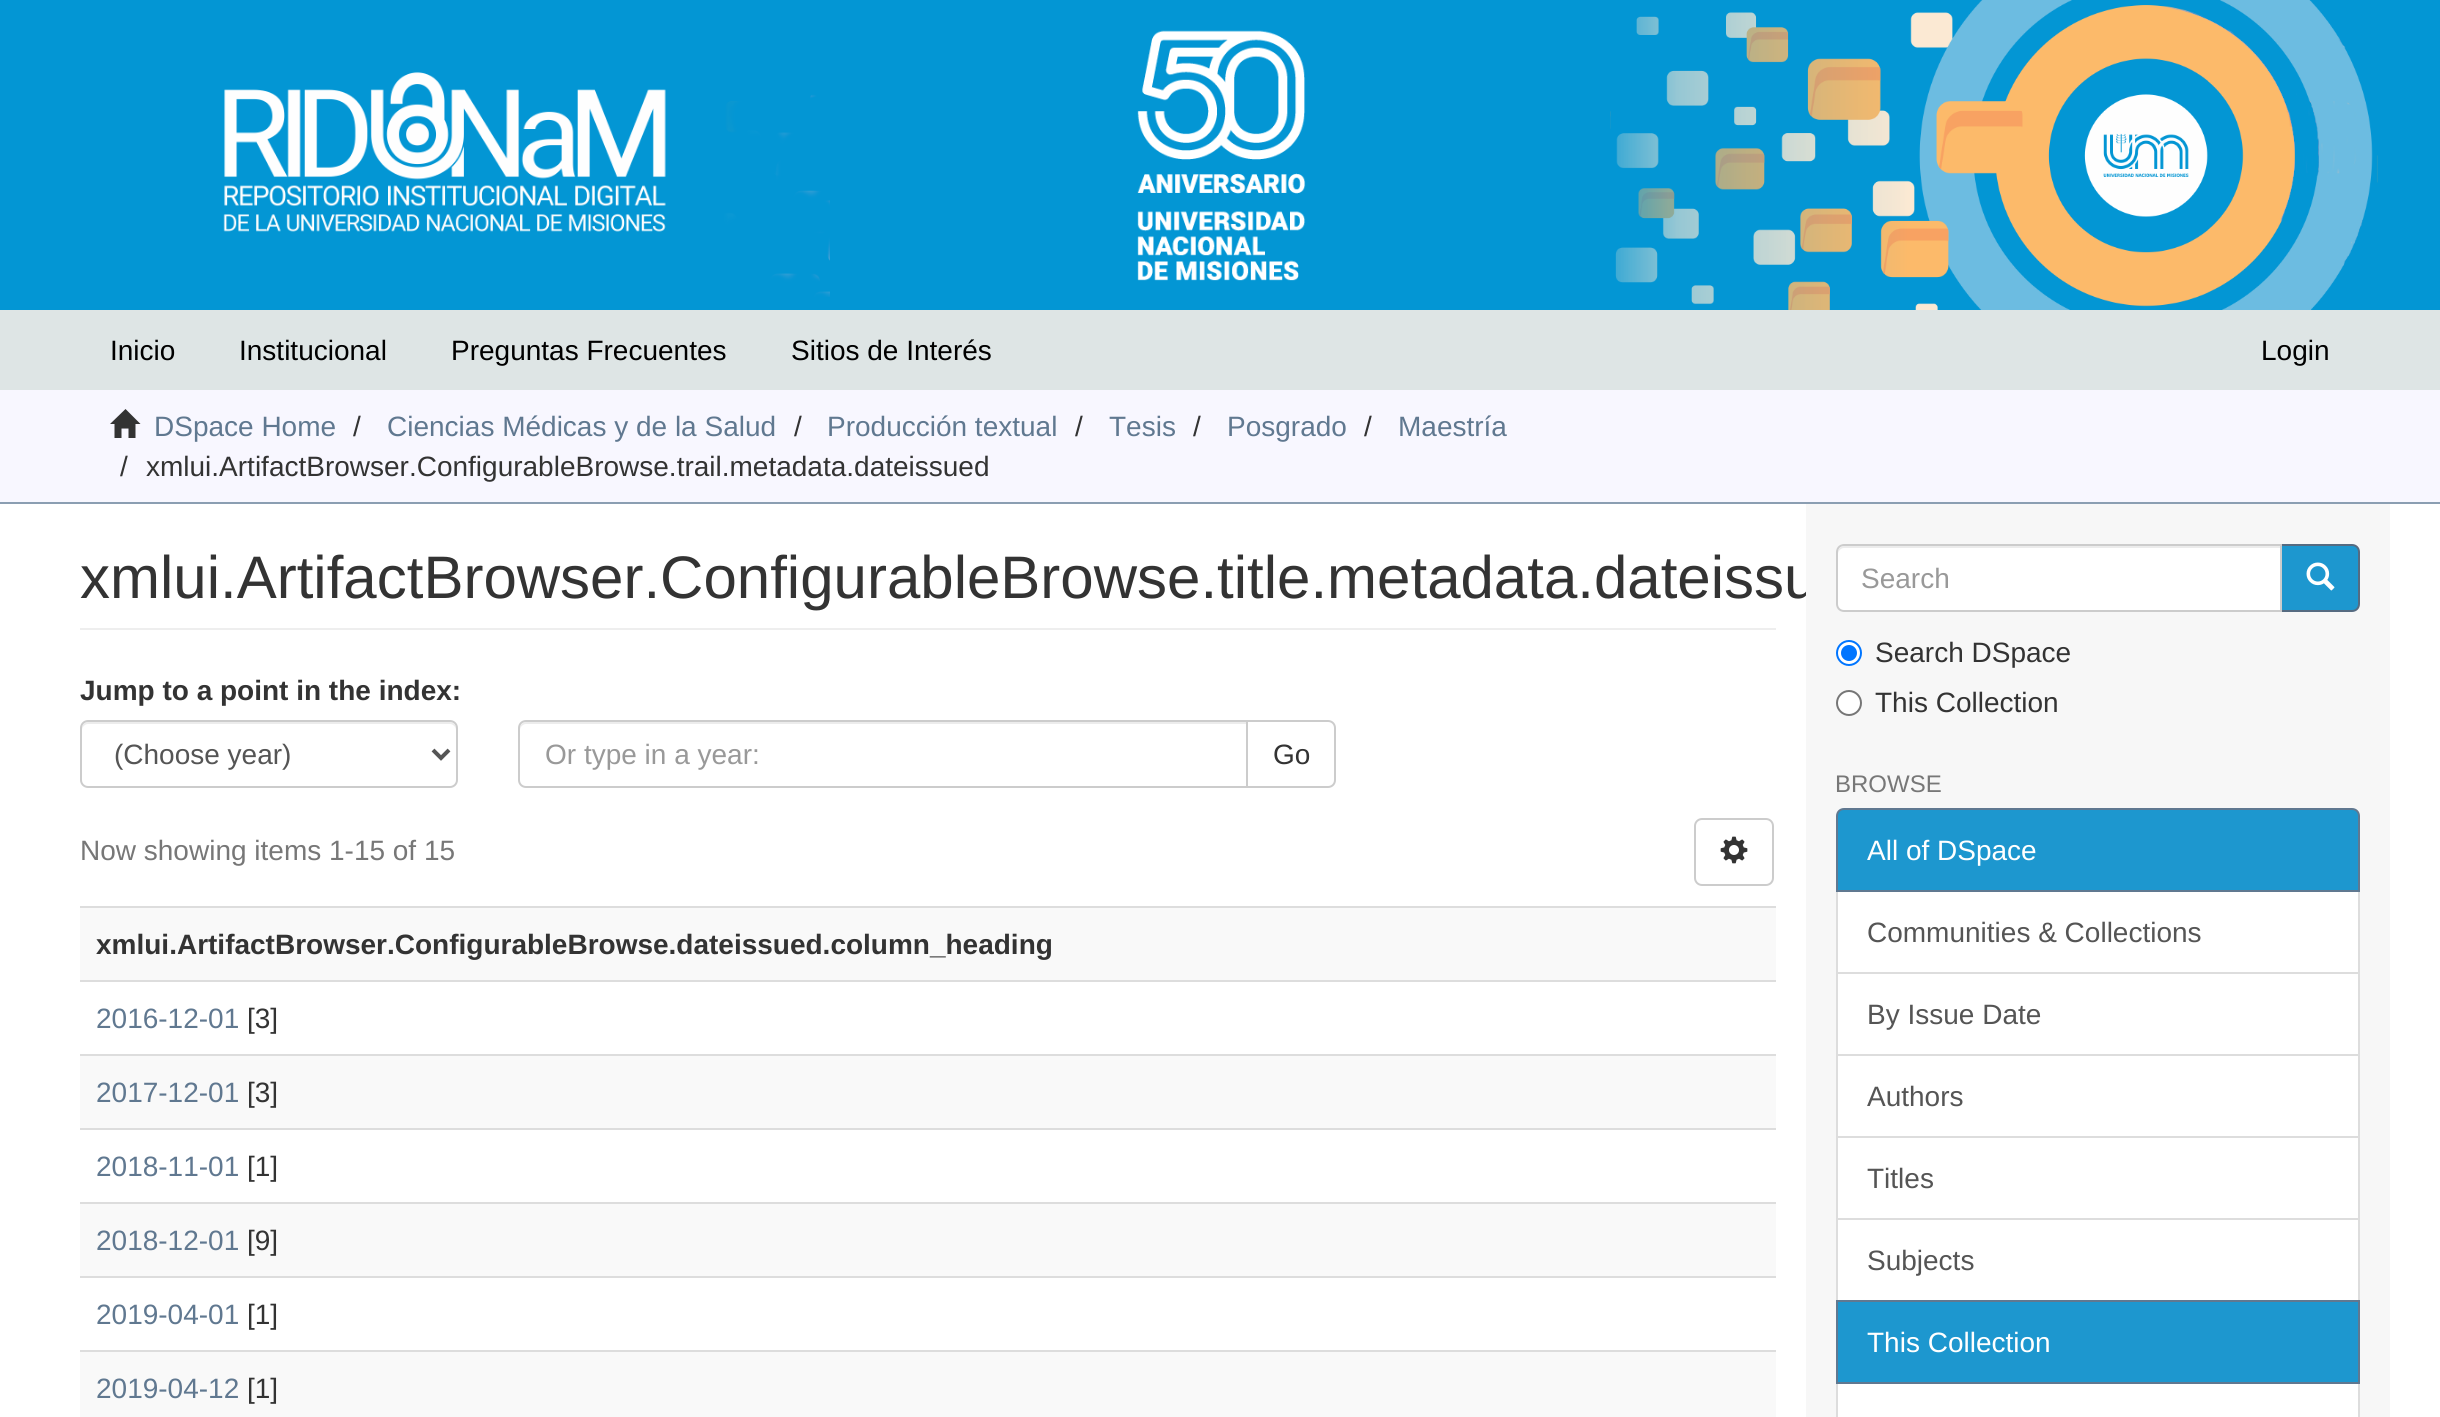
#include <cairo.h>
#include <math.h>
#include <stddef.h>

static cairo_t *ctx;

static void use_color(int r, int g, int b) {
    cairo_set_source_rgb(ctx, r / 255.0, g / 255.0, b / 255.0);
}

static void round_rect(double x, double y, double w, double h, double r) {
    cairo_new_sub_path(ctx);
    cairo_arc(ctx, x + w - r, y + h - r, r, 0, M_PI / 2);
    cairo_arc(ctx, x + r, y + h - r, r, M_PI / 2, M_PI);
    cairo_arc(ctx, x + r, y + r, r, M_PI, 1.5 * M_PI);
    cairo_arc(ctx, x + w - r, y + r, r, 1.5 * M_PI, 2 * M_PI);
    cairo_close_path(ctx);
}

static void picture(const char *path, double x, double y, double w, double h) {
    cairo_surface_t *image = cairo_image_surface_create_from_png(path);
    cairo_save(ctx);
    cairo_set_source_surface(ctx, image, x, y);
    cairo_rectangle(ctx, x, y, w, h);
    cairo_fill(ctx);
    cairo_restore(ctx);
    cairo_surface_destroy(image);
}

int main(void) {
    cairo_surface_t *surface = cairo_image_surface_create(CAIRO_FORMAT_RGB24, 2440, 1417);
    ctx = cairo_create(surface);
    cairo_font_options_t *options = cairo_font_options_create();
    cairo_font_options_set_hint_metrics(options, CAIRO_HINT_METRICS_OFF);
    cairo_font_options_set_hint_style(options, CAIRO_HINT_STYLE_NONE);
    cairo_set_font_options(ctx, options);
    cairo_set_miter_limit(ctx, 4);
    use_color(255, 255, 255);
    cairo_paint(ctx);
    use_color(3, 150, 212);
    cairo_rectangle(ctx, 0, 0, 2440, 310);
    cairo_fill(ctx);
    picture("img1.png", 223, 72, 607, 225);
    picture("img2.png", 1137, 30, 169, 251);
    picture("img3.png", 1610, 0, 768, 310);
    use_color(222, 229, 229);
    cairo_rectangle(ctx, 0, 310, 2440, 80);
    cairo_fill(ctx);
    cairo_select_font_face(ctx, "Liberation Sans", CAIRO_FONT_SLANT_NORMAL, CAIRO_FONT_WEIGHT_NORMAL);
    cairo_set_font_size(ctx, 28);
    use_color(0, 0, 0);
    cairo_move_to(ctx, 110, 360);
    cairo_show_text(ctx, "Inicio");
    cairo_move_to(ctx, 239, 360);
    cairo_show_text(ctx, "Institucional");
    cairo_move_to(ctx, 451, 360);
    cairo_show_text(ctx, "Preguntas Frecuentes");
    cairo_move_to(ctx, 791, 360);
    cairo_show_text(ctx, "Sitios de Interés");
    cairo_move_to(ctx, 2261, 360);
    cairo_show_text(ctx, "Login");
    use_color(248, 247, 255);
    cairo_rectangle(ctx, 0, 390, 2440, 112);
    cairo_fill(ctx);
    use_color(139, 158, 178);
    cairo_rectangle(ctx, 0, 502, 2440, 2);
    cairo_fill(ctx);
    use_color(51, 51, 51);
    cairo_new_path(ctx);
    cairo_move_to(ctx, 110, 424);
    cairo_line_to(ctx, 125.5, 409);
    cairo_line_to(ctx, 140.5, 424);
    cairo_line_to(ctx, 135.5, 424);
    cairo_line_to(ctx, 135.5, 438);
    cairo_line_to(ctx, 128.5, 438);
    cairo_line_to(ctx, 128.5, 428.5);
    cairo_line_to(ctx, 121.5, 428.5);
    cairo_line_to(ctx, 121.5, 438);
    cairo_line_to(ctx, 114.5, 438);
    cairo_line_to(ctx, 114.5, 424);
    cairo_close_path(ctx);
    cairo_fill(ctx);
    use_color(96, 120, 144);
    cairo_move_to(ctx, 154, 436);
    cairo_show_text(ctx, "DSpace Home");
    use_color(51, 51, 51);
    cairo_move_to(ctx, 353, 436);
    cairo_show_text(ctx, "/");
    use_color(96, 120, 144);
    cairo_move_to(ctx, 387, 436);
    cairo_show_text(ctx, "Ciencias Médicas y de la Salud");
    use_color(51, 51, 51);
    cairo_move_to(ctx, 794, 436);
    cairo_show_text(ctx, "/");
    use_color(96, 120, 144);
    cairo_move_to(ctx, 827, 436);
    cairo_show_text(ctx, "Producción textual");
    use_color(51, 51, 51);
    cairo_move_to(ctx, 1075, 436);
    cairo_show_text(ctx, "/");
    use_color(96, 120, 144);
    cairo_move_to(ctx, 1109, 436);
    cairo_show_text(ctx, "Tesis");
    use_color(51, 51, 51);
    cairo_move_to(ctx, 1193, 436);
    cairo_show_text(ctx, "/");
    use_color(96, 120, 144);
    cairo_move_to(ctx, 1227, 436);
    cairo_show_text(ctx, "Posgrado");
    use_color(51, 51, 51);
    cairo_move_to(ctx, 1364, 436);
    cairo_show_text(ctx, "/");
    use_color(96, 120, 144);
    cairo_move_to(ctx, 1398, 436);
    cairo_show_text(ctx, "Maestría");
    use_color(51, 51, 51);
    cairo_move_to(ctx, 120, 476);
    cairo_show_text(ctx, "/");
    cairo_move_to(ctx, 146, 476);
    cairo_show_text(ctx, "xmlui.ArtifactBrowser.ConfigurableBrowse.trail.metadata.dateissued");
    use_color(238, 238, 238);
    cairo_rectangle(ctx, 80, 628, 1696, 2);
    cairo_fill(ctx);
    cairo_set_font_size(ctx, 60);
    use_color(51, 51, 51);
    cairo_move_to(ctx, 80, 598);
    cairo_show_text(ctx, "xmlui.ArtifactBrowser.ConfigurableBrowse.title.metadata.dateissu");
    cairo_select_font_face(ctx, "Liberation Sans", CAIRO_FONT_SLANT_NORMAL, CAIRO_FONT_WEIGHT_BOLD);
    cairo_set_font_size(ctx, 28);
    cairo_move_to(ctx, 80, 700);
    cairo_show_text(ctx, "Jump to a point in the index:");
    use_color(236, 236, 236);
    cairo_new_path(ctx);
    cairo_move_to(ctx, 88, 724);
    cairo_line_to(ctx, 450, 724);
    cairo_curve_to(ctx, 453, 724, 456, 727, 456, 730);
    cairo_line_to(ctx, 456, 728);
    cairo_curve_to(ctx, 456, 725, 453, 722, 450, 722);
    cairo_line_to(ctx, 88, 722);
    cairo_curve_to(ctx, 85, 722, 82, 725, 82, 728);
    cairo_line_to(ctx, 82, 730);
    cairo_curve_to(ctx, 82, 727, 85, 724, 88, 724);
    cairo_close_path(ctx);
    cairo_fill(ctx);
    round_rect(81, 721, 376, 66, 7);
    use_color(204, 204, 204);
    cairo_stroke(ctx);
    cairo_new_path(ctx);
    cairo_move_to(ctx, 433, 750);
    cairo_line_to(ctx, 441, 758);
    cairo_line_to(ctx, 449, 750);
    use_color(85, 85, 85);
    cairo_set_line_width(ctx, 4);
    cairo_stroke(ctx);
    cairo_select_font_face(ctx, "Liberation Sans", CAIRO_FONT_SLANT_NORMAL, CAIRO_FONT_WEIGHT_NORMAL);
    cairo_move_to(ctx, 114, 764);
    cairo_show_text(ctx, "(Choose year)");
    cairo_new_path(ctx);
    cairo_move_to(ctx, 1247, 721);
    cairo_line_to(ctx, 1328, 721);
    cairo_curve_to(ctx, 1332, 721, 1335, 724, 1335, 728);
    cairo_line_to(ctx, 1335, 780);
    cairo_curve_to(ctx, 1335, 784, 1332, 787, 1328, 787);
    cairo_line_to(ctx, 1247, 787);
    cairo_close_path(ctx);
    use_color(204, 204, 204);
    cairo_set_line_width(ctx, 2);
    cairo_stroke(ctx);
    use_color(255, 255, 255);
    cairo_new_path(ctx);
    cairo_move_to(ctx, 526, 720);
    cairo_line_to(ctx, 1248, 720);
    cairo_line_to(ctx, 1248, 788);
    cairo_line_to(ctx, 526, 788);
    cairo_curve_to(ctx, 521.5, 788, 518, 784.5, 518, 780);
    cairo_line_to(ctx, 518, 728);
    cairo_curve_to(ctx, 518, 723.5, 521.5, 720, 526, 720);
    cairo_close_path(ctx);
    cairo_fill(ctx);
    use_color(236, 236, 236);
    cairo_new_path(ctx);
    cairo_move_to(ctx, 526, 724);
    cairo_line_to(ctx, 1246, 724);
    cairo_line_to(ctx, 1246, 722);
    cairo_line_to(ctx, 526, 722);
    cairo_curve_to(ctx, 523, 722, 520, 725, 520, 728);
    cairo_line_to(ctx, 520, 730);
    cairo_curve_to(ctx, 520, 727, 523, 724, 526, 724);
    cairo_close_path(ctx);
    cairo_fill(ctx);
    cairo_new_path(ctx);
    cairo_move_to(ctx, 526, 721);
    cairo_line_to(ctx, 1247, 721);
    cairo_line_to(ctx, 1247, 787);
    cairo_line_to(ctx, 526, 787);
    cairo_curve_to(ctx, 522, 787, 519, 784, 519, 780);
    cairo_line_to(ctx, 519, 728);
    cairo_curve_to(ctx, 519, 724, 522, 721, 526, 721);
    cairo_close_path(ctx);
    use_color(204, 204, 204);
    cairo_stroke(ctx);
    use_color(153, 153, 153);
    cairo_move_to(ctx, 545, 764);
    cairo_show_text(ctx, "Or type in a year:");
    use_color(51, 51, 51);
    cairo_move_to(ctx, 1273, 764);
    cairo_show_text(ctx, "Go");
    use_color(119, 119, 119);
    cairo_move_to(ctx, 80, 860);
    cairo_show_text(ctx, "Now showing items 1-15 of 15");
    round_rect(1695, 819, 78, 66, 7);
    use_color(204, 204, 204);
    cairo_stroke(ctx);
    picture("img4.png", 1720, 836, 28, 28);
    use_color(249, 249, 249);
    cairo_rectangle(ctx, 80, 908, 1696, 72);
    cairo_fill(ctx);
    use_color(221, 221, 221);
    cairo_rectangle(ctx, 80, 906, 1696, 2);
    cairo_fill(ctx);
    cairo_select_font_face(ctx, "Liberation Sans", CAIRO_FONT_SLANT_NORMAL, CAIRO_FONT_WEIGHT_BOLD);
    use_color(51, 51, 51);
    cairo_move_to(ctx, 96, 954);
    cairo_show_text(ctx, "xmlui.ArtifactBrowser.ConfigurableBrowse.dateissued.column_heading");
    use_color(221, 221, 221);
    cairo_rectangle(ctx, 80, 980, 1696, 2);
    cairo_fill(ctx);
    cairo_select_font_face(ctx, "Liberation Sans", CAIRO_FONT_SLANT_NORMAL, CAIRO_FONT_WEIGHT_NORMAL);
    use_color(96, 120, 144);
    cairo_move_to(ctx, 96, 1028);
    cairo_show_text(ctx, "2016-12-01");
    use_color(51, 51, 51);
    cairo_move_to(ctx, 247, 1028);
    cairo_show_text(ctx, "[3]");
    use_color(249, 249, 249);
    cairo_rectangle(ctx, 80, 1056, 1696, 72);
    cairo_fill(ctx);
    use_color(221, 221, 221);
    cairo_rectangle(ctx, 80, 1054, 1696, 2);
    cairo_fill(ctx);
    use_color(96, 120, 144);
    cairo_move_to(ctx, 96, 1102);
    cairo_show_text(ctx, "2017-12-01");
    use_color(51, 51, 51);
    cairo_move_to(ctx, 247, 1102);
    cairo_show_text(ctx, "[3]");
    use_color(221, 221, 221);
    cairo_rectangle(ctx, 80, 1128, 1696, 2);
    cairo_fill(ctx);
    use_color(96, 120, 144);
    cairo_move_to(ctx, 96, 1176);
    cairo_show_text(ctx, "2018-11-01");
    use_color(51, 51, 51);
    cairo_move_to(ctx, 247, 1176);
    cairo_show_text(ctx, "[1]");
    use_color(249, 249, 249);
    cairo_rectangle(ctx, 80, 1204, 1696, 72);
    cairo_fill(ctx);
    use_color(221, 221, 221);
    cairo_rectangle(ctx, 80, 1202, 1696, 2);
    cairo_fill(ctx);
    use_color(96, 120, 144);
    cairo_move_to(ctx, 96, 1250);
    cairo_show_text(ctx, "2018-12-01");
    use_color(51, 51, 51);
    cairo_move_to(ctx, 247, 1250);
    cairo_show_text(ctx, "[9]");
    use_color(221, 221, 221);
    cairo_rectangle(ctx, 80, 1276, 1696, 2);
    cairo_fill(ctx);
    use_color(96, 120, 144);
    cairo_move_to(ctx, 96, 1324);
    cairo_show_text(ctx, "2019-04-01");
    use_color(51, 51, 51);
    cairo_move_to(ctx, 247, 1324);
    cairo_show_text(ctx, "[1]");
    use_color(249, 249, 249);
    cairo_rectangle(ctx, 80, 1352, 1696, 65);
    cairo_fill(ctx);
    use_color(221, 221, 221);
    cairo_rectangle(ctx, 80, 1350, 1696, 2);
    cairo_fill(ctx);
    use_color(96, 120, 144);
    cairo_move_to(ctx, 96, 1398);
    cairo_show_text(ctx, "2019-04-12");
    use_color(51, 51, 51);
    cairo_move_to(ctx, 247, 1398);
    cairo_show_text(ctx, "[1]");
    use_color(247, 247, 247);
    cairo_rectangle(ctx, 1806, 504, 584, 913);
    cairo_fill(ctx);
    use_color(29, 151, 207);
    cairo_new_path(ctx);
    cairo_move_to(ctx, 2281, 545);
    cairo_line_to(ctx, 2352, 545);
    cairo_curve_to(ctx, 2356, 545, 2359, 548, 2359, 552);
    cairo_line_to(ctx, 2359, 604);
    cairo_curve_to(ctx, 2359, 608, 2356, 611, 2352, 611);
    cairo_line_to(ctx, 2281, 611);
    cairo_close_path(ctx);
    cairo_fill_preserve(ctx);
    use_color(86, 107, 129);
    cairo_stroke(ctx);
    use_color(255, 255, 255);
    cairo_new_path(ctx);
    cairo_move_to(ctx, 1844, 544);
    cairo_line_to(ctx, 2282, 544);
    cairo_line_to(ctx, 2282, 612);
    cairo_line_to(ctx, 1844, 612);
    cairo_curve_to(ctx, 1839.5, 612, 1836, 608.5, 1836, 604);
    cairo_line_to(ctx, 1836, 552);
    cairo_curve_to(ctx, 1836, 547.5, 1839.5, 544, 1844, 544);
    cairo_close_path(ctx);
    cairo_fill(ctx);
    use_color(236, 236, 236);
    cairo_new_path(ctx);
    cairo_move_to(ctx, 1844, 548);
    cairo_line_to(ctx, 2280, 548);
    cairo_line_to(ctx, 2280, 546);
    cairo_line_to(ctx, 1844, 546);
    cairo_curve_to(ctx, 1841, 546, 1838, 549, 1838, 552);
    cairo_line_to(ctx, 1838, 554);
    cairo_curve_to(ctx, 1838, 551, 1841, 548, 1844, 548);
    cairo_close_path(ctx);
    cairo_fill(ctx);
    cairo_new_path(ctx);
    cairo_move_to(ctx, 1844, 545);
    cairo_line_to(ctx, 2281, 545);
    cairo_line_to(ctx, 2281, 611);
    cairo_line_to(ctx, 1844, 611);
    cairo_curve_to(ctx, 1840, 611, 1837, 608, 1837, 604);
    cairo_line_to(ctx, 1837, 552);
    cairo_curve_to(ctx, 1837, 548, 1840, 545, 1844, 545);
    cairo_close_path(ctx);
    use_color(204, 204, 204);
    cairo_stroke(ctx);
    use_color(153, 153, 153);
    cairo_move_to(ctx, 1861, 588);
    cairo_show_text(ctx, "Search");
    picture("img5.png", 2306, 562, 29, 29);
    use_color(255, 255, 255);
    cairo_arc(ctx, 1849, 653, 12, 0, 2 * M_PI);
    cairo_fill_preserve(ctx);
    use_color(0, 117, 255);
    cairo_stroke(ctx);
    cairo_arc(ctx, 1849, 653, 8, 0, 2 * M_PI);
    cairo_fill(ctx);
    use_color(51, 51, 51);
    cairo_move_to(ctx, 1875, 662);
    cairo_show_text(ctx, "Search DSpace");
    use_color(255, 255, 255);
    cairo_new_path(ctx);
    cairo_arc(ctx, 1849, 703, 12, 0, 2 * M_PI);
    cairo_fill_preserve(ctx);
    use_color(118, 118, 118);
    cairo_stroke(ctx);
    use_color(51, 51, 51);
    cairo_move_to(ctx, 1875, 712);
    cairo_show_text(ctx, "This Collection");
    cairo_set_font_size(ctx, 24);
    use_color(119, 119, 119);
    cairo_move_to(ctx, 1835, 792);
    cairo_show_text(ctx, "BROWSE");
    use_color(255, 255, 255);
    cairo_rectangle(ctx, 1837, 891, 522, 82);
    cairo_fill_preserve(ctx);
    use_color(221, 221, 221);
    cairo_stroke(ctx);
    use_color(29, 151, 207);
    cairo_new_path(ctx);
    cairo_move_to(ctx, 1844, 809);
    cairo_line_to(ctx, 2352, 809);
    cairo_curve_to(ctx, 2356, 809, 2359, 812, 2359, 816);
    cairo_line_to(ctx, 2359, 891);
    cairo_line_to(ctx, 1837, 891);
    cairo_line_to(ctx, 1837, 816);
    cairo_curve_to(ctx, 1837, 812, 1840, 809, 1844, 809);
    cairo_close_path(ctx);
    cairo_fill_preserve(ctx);
    use_color(96, 120, 144);
    cairo_stroke(ctx);
    cairo_set_font_size(ctx, 28);
    use_color(255, 255, 255);
    cairo_move_to(ctx, 1867, 860);
    cairo_show_text(ctx, "All of DSpace");
    use_color(85, 85, 85);
    cairo_move_to(ctx, 1867, 942);
    cairo_show_text(ctx, "Communities & Collections");
    use_color(255, 255, 255);
    cairo_rectangle(ctx, 1837, 973, 522, 82);
    cairo_fill_preserve(ctx);
    use_color(221, 221, 221);
    cairo_stroke(ctx);
    use_color(85, 85, 85);
    cairo_move_to(ctx, 1867, 1024);
    cairo_show_text(ctx, "By Issue Date");
    use_color(255, 255, 255);
    cairo_rectangle(ctx, 1837, 1055, 522, 82);
    cairo_fill_preserve(ctx);
    use_color(221, 221, 221);
    cairo_stroke(ctx);
    use_color(85, 85, 85);
    cairo_move_to(ctx, 1867, 1106);
    cairo_show_text(ctx, "Authors");
    use_color(255, 255, 255);
    cairo_rectangle(ctx, 1837, 1137, 522, 82);
    cairo_fill_preserve(ctx);
    use_color(221, 221, 221);
    cairo_stroke(ctx);
    use_color(85, 85, 85);
    cairo_move_to(ctx, 1867, 1188);
    cairo_show_text(ctx, "Titles");
    use_color(255, 255, 255);
    cairo_rectangle(ctx, 1837, 1219, 522, 82);
    cairo_fill_preserve(ctx);
    use_color(221, 221, 221);
    cairo_stroke(ctx);
    use_color(85, 85, 85);
    cairo_move_to(ctx, 1867, 1270);
    cairo_show_text(ctx, "Subjects");
    use_color(255, 255, 255);
    cairo_rectangle(ctx, 1837, 1383, 522, 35);
    cairo_fill_preserve(ctx);
    use_color(221, 221, 221);
    cairo_stroke(ctx);
    use_color(29, 151, 207);
    cairo_rectangle(ctx, 1837, 1301, 522, 82);
    cairo_fill_preserve(ctx);
    use_color(96, 120, 144);
    cairo_stroke(ctx);
    use_color(255, 255, 255);
    cairo_move_to(ctx, 1867, 1352);
    cairo_show_text(ctx, "This Collection");
    cairo_surface_write_to_png(surface, "result.png");
    cairo_font_options_destroy(options);
    cairo_destroy(ctx);
    cairo_surface_destroy(surface);
    return 0;
}
